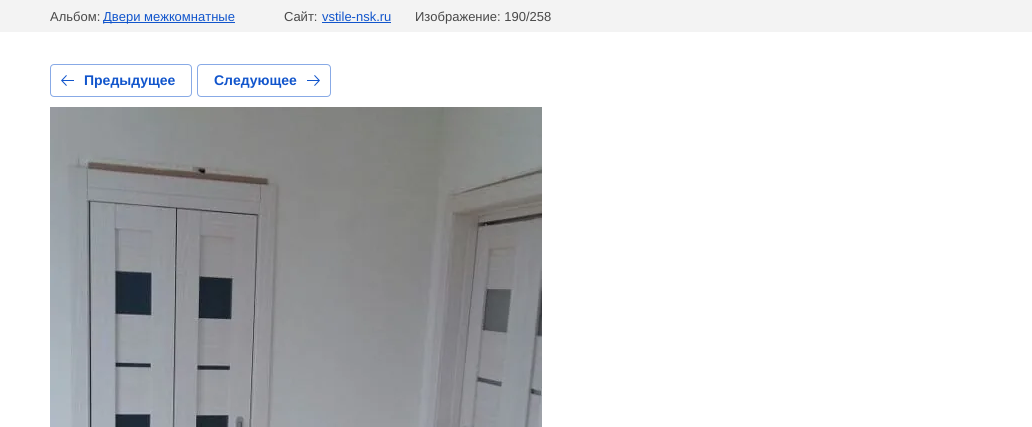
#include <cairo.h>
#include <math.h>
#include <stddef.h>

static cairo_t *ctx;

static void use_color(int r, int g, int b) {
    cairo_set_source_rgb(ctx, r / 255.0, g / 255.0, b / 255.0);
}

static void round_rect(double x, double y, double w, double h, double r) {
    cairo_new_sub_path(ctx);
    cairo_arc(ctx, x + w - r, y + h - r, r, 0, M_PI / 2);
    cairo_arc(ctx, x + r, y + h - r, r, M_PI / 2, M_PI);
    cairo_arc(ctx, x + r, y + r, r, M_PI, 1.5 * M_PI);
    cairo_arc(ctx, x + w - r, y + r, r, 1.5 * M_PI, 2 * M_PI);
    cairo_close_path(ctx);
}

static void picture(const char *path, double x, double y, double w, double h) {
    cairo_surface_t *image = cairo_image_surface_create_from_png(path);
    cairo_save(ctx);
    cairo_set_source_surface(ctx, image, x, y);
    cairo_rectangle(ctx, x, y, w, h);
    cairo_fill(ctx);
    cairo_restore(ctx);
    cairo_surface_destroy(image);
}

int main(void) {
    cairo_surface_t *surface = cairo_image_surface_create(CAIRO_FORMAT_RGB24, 1032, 427);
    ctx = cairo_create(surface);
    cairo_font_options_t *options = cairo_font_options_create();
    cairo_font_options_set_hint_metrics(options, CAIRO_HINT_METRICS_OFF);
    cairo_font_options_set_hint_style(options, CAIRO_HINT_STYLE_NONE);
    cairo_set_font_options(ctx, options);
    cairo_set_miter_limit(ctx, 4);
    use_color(255, 255, 255);
    cairo_paint(ctx);
    use_color(243, 243, 243);
    cairo_rectangle(ctx, 0, 0, 1032, 32);
    cairo_fill(ctx);
    cairo_select_font_face(ctx, "Liberation Sans", CAIRO_FONT_SLANT_NORMAL, CAIRO_FONT_WEIGHT_NORMAL);
    cairo_set_font_size(ctx, 13);
    use_color(72, 72, 72);
    cairo_move_to(ctx, 50, 21);
    cairo_show_text(ctx, "Альбом:");
    use_color(17, 85, 204);
    cairo_rectangle(ctx, 103, 22, 132, 1);
    cairo_fill(ctx);
    cairo_move_to(ctx, 103, 21);
    cairo_show_text(ctx, "Двери межкомнатные");
    use_color(72, 72, 72);
    cairo_move_to(ctx, 284, 21);
    cairo_show_text(ctx, "Сайт:");
    use_color(17, 85, 204);
    cairo_move_to(ctx, 322, 21);
    cairo_show_text(ctx, "vstile-nsk.ru");
    cairo_rectangle(ctx, 322, 22, 69, 1);
    cairo_fill(ctx);
    use_color(72, 72, 72);
    cairo_move_to(ctx, 415, 21);
    cairo_show_text(ctx, "Изображение: 190/258");
    round_rect(50.5, 64.5, 141, 32, 3.5);
    use_color(136, 170, 230);
    cairo_set_line_width(ctx, 1);
    cairo_stroke(ctx);
    picture("img1.png", 61, 75, 13, 11);
    cairo_select_font_face(ctx, "Liberation Sans", CAIRO_FONT_SLANT_NORMAL, CAIRO_FONT_WEIGHT_BOLD);
    cairo_set_font_size(ctx, 14);
    use_color(17, 85, 204);
    cairo_move_to(ctx, 84, 85);
    cairo_show_text(ctx, "Предыдущее");
    round_rect(197.5, 64.5, 133, 32, 3.5);
    use_color(136, 170, 230);
    cairo_stroke(ctx);
    use_color(17, 85, 204);
    cairo_move_to(ctx, 214, 85);
    cairo_show_text(ctx, "Следующее");
    picture("img2.png", 307, 75, 13, 11);
    picture("img3.png", 50, 107, 492, 320);
    cairo_surface_write_to_png(surface, "result.png");
    cairo_font_options_destroy(options);
    cairo_destroy(ctx);
    cairo_surface_destroy(surface);
    return 0;
}
